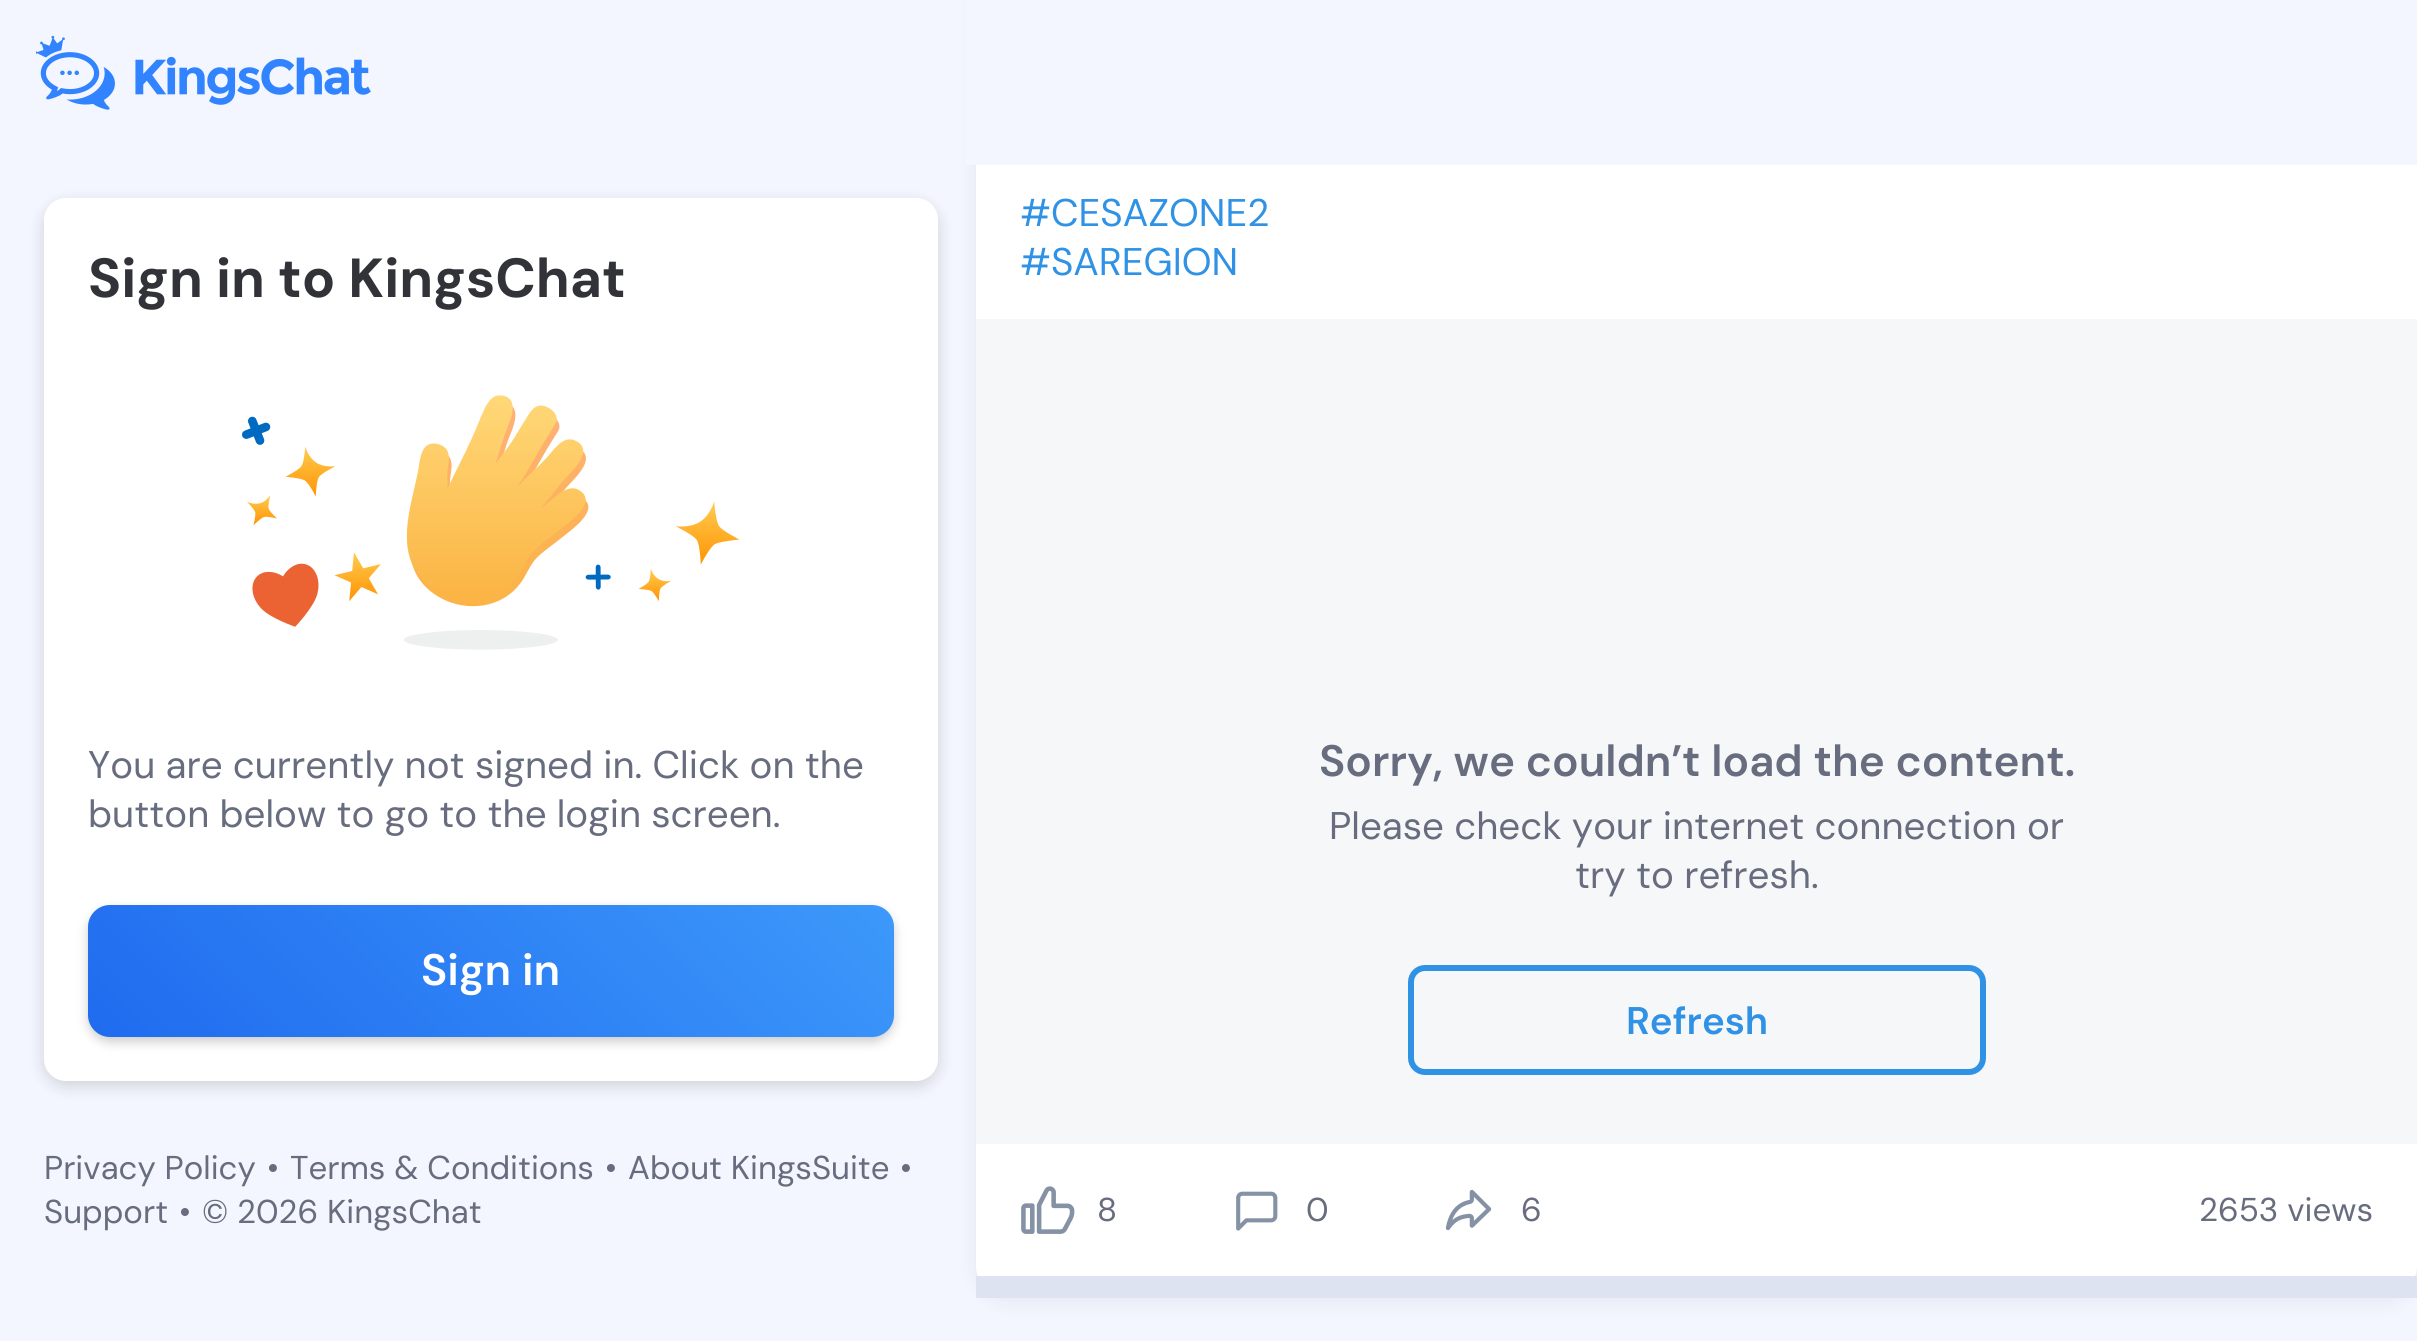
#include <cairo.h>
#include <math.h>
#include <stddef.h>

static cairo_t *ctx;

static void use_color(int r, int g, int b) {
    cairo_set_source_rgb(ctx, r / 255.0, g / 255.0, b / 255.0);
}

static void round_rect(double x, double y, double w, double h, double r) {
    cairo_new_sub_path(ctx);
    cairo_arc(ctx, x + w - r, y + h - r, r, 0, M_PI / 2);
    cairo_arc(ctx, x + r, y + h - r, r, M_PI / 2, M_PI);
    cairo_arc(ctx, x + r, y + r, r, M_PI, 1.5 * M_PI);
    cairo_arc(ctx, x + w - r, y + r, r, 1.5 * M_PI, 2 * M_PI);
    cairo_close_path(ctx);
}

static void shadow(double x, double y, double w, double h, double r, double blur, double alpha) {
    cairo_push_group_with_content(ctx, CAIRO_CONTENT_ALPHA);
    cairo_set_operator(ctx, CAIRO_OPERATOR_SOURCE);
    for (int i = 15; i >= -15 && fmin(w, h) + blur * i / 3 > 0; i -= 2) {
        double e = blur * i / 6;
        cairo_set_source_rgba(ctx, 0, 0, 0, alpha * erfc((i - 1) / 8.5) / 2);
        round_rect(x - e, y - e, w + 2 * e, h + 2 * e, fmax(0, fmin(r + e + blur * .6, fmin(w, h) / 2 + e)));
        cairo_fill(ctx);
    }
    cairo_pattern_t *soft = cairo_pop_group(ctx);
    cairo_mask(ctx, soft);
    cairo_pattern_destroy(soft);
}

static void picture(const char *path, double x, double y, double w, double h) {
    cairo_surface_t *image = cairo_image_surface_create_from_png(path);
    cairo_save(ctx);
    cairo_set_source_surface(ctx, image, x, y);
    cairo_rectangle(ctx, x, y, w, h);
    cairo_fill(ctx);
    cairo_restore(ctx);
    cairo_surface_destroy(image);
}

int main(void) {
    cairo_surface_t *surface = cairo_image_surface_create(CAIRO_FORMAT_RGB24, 2417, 1341);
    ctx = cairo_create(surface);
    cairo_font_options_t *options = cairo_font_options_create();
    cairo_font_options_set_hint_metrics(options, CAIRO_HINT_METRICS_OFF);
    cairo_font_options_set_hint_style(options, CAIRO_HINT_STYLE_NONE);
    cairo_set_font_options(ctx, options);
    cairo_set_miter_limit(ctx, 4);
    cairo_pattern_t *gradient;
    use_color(243, 246, 254);
    cairo_paint(ctx);
    use_color(57, 61, 70);
    shadow(976, -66, 1441, 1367, 33, 11, 0.08);
    use_color(255, 255, 255);
    round_rect(976, -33, 1441, 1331, 33);
    cairo_fill(ctx);
    use_color(243, 246, 254);
    cairo_rectangle(ctx, 966, 0, 1451, 165);
    cairo_fill(ctx);
    picture("img1.png", 36, 35, 335, 75);
    use_color(0, 0, 0);
    shadow(44, 204, 894, 882, 22, 8, 0.15);
    use_color(255, 255, 255);
    round_rect(44, 198, 894, 883, 22);
    cairo_fill(ctx);
    cairo_select_font_face(ctx, "DM Sans", CAIRO_FONT_SLANT_NORMAL, CAIRO_FONT_WEIGHT_BOLD);
    cairo_set_font_size(ctx, 55);
    use_color(50, 51, 56);
    cairo_move_to(ctx, 88, 297);
    cairo_show_text(ctx, "Sign in to KingsChat");
    picture("img2.png", 242, 395, 498, 255);
    cairo_select_font_face(ctx, "DM Sans", CAIRO_FONT_SLANT_NORMAL, CAIRO_FONT_WEIGHT_NORMAL);
    cairo_set_font_size(ctx, 38.5);
    use_color(103, 109, 126);
    cairo_move_to(ctx, 88, 778);
    cairo_show_text(ctx, "You are currently not signed in. Click on the");
    cairo_move_to(ctx, 88, 827);
    cairo_show_text(ctx, "button below to go to the login screen.");
    use_color(0, 0, 0);
    shadow(88, 910, 806, 132, 22, 5.5, 0.2);
    gradient = cairo_pattern_create_linear(357, 1306, 1027, 636);
    cairo_pattern_add_color_stop_rgba(gradient, 0, 0.125, 0.42, 0.937, 1);
    cairo_pattern_add_color_stop_rgba(gradient, 1, 0.286, 0.675, 1, 1);
    cairo_set_source(ctx, gradient);
    cairo_pattern_destroy(gradient);
    round_rect(88, 905, 806, 132, 22);
    cairo_fill(ctx);
    cairo_select_font_face(ctx, "DM Sans SemiBold", CAIRO_FONT_SLANT_NORMAL, CAIRO_FONT_WEIGHT_NORMAL);
    cairo_set_font_size(ctx, 44);
    use_color(255, 255, 255);
    cairo_move_to(ctx, 421, 985);
    cairo_show_text(ctx, "Sign in");
    cairo_select_font_face(ctx, "DM Sans", CAIRO_FONT_SLANT_NORMAL, CAIRO_FONT_WEIGHT_NORMAL);
    cairo_set_font_size(ctx, 33);
    use_color(103, 109, 126);
    cairo_move_to(ctx, 44, 1179);
    cairo_show_text(ctx, "Privacy Policy");
    cairo_move_to(ctx, 267, 1179);
    cairo_show_text(ctx, "•");
    cairo_move_to(ctx, 290, 1179);
    cairo_show_text(ctx, "Terms & Conditions");
    cairo_move_to(ctx, 605, 1179);
    cairo_show_text(ctx, "•");
    cairo_move_to(ctx, 628, 1179);
    cairo_show_text(ctx, "About KingsSuite");
    cairo_move_to(ctx, 900, 1179);
    cairo_show_text(ctx, "•");
    cairo_move_to(ctx, 44, 1223);
    cairo_show_text(ctx, "Support");
    cairo_move_to(ctx, 179, 1223);
    cairo_show_text(ctx, "•");
    cairo_move_to(ctx, 202, 1223);
    cairo_show_text(ctx, "© 2026 KingsChat");
    use_color(221, 227, 240);
    cairo_rectangle(ctx, 976, 1276, 1441, 22);
    cairo_fill(ctx);
    cairo_set_font_size(ctx, 38.5);
    use_color(47, 146, 229);
    cairo_move_to(ctx, 1020, 226);
    cairo_show_text(ctx, "#CESAZONE2");
    cairo_move_to(ctx, 1020, 275);
    cairo_show_text(ctx, "#SAREGION");
    use_color(246, 247, 249);
    cairo_rectangle(ctx, 976, 319, 1441, 825);
    cairo_fill(ctx);
    cairo_select_font_face(ctx, "DM Sans SemiBold", CAIRO_FONT_SLANT_NORMAL, CAIRO_FONT_WEIGHT_NORMAL);
    cairo_set_font_size(ctx, 44);
    use_color(103, 109, 126);
    cairo_move_to(ctx, 1319, 776);
    cairo_show_text(ctx, "Sorry, we couldn’t load the content.");
    cairo_select_font_face(ctx, "DM Sans", CAIRO_FONT_SLANT_NORMAL, CAIRO_FONT_WEIGHT_NORMAL);
    cairo_set_font_size(ctx, 38.5);
    cairo_move_to(ctx, 1329, 839);
    cairo_show_text(ctx, "Please check your internet connection or");
    cairo_move_to(ctx, 1575, 888);
    cairo_show_text(ctx, "try to refresh.");
    round_rect(1411, 968, 572, 104, 14);
    use_color(47, 146, 229);
    cairo_set_line_width(ctx, 6);
    cairo_stroke(ctx);
    cairo_select_font_face(ctx, "DM Sans SemiBold", CAIRO_FONT_SLANT_NORMAL, CAIRO_FONT_WEIGHT_NORMAL);
    cairo_move_to(ctx, 1626, 1034);
    cairo_show_text(ctx, "Refresh");
    picture("img3.png", 1021, 1186, 54, 48);
    cairo_select_font_face(ctx, "DM Sans", CAIRO_FONT_SLANT_NORMAL, CAIRO_FONT_WEIGHT_NORMAL);
    cairo_set_font_size(ctx, 33);
    use_color(103, 109, 126);
    cairo_move_to(ctx, 1097, 1221);
    cairo_show_text(ctx, "8");
    picture("img4.png", 1236, 1191, 42, 40);
    cairo_move_to(ctx, 1306, 1221);
    cairo_show_text(ctx, "0");
    picture("img5.png", 1445, 1189, 47, 42);
    cairo_move_to(ctx, 1521, 1221);
    cairo_show_text(ctx, "6");
    cairo_move_to(ctx, 2199, 1221);
    cairo_show_text(ctx, "2653 views");
    cairo_surface_write_to_png(surface, "result.png");
    cairo_font_options_destroy(options);
    cairo_destroy(ctx);
    cairo_surface_destroy(surface);
    return 0;
}
